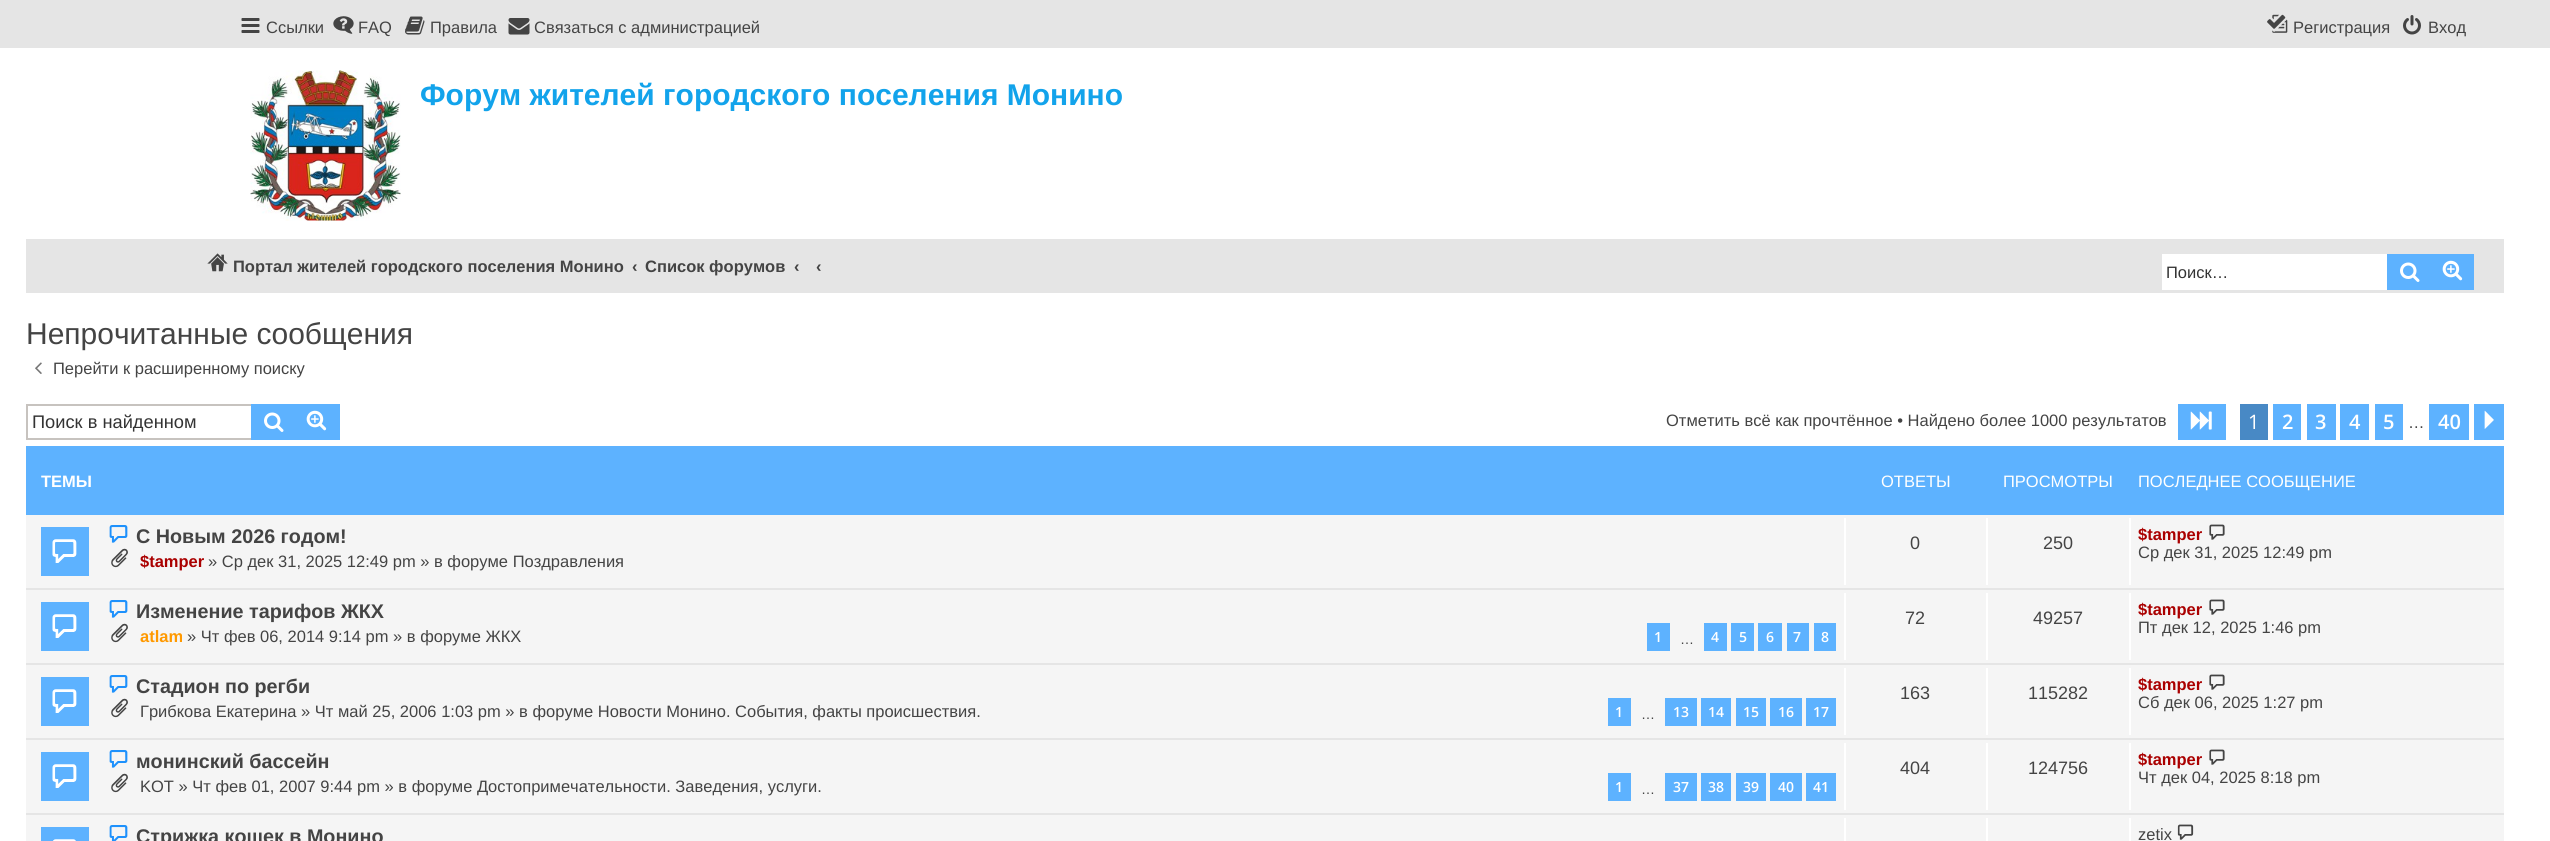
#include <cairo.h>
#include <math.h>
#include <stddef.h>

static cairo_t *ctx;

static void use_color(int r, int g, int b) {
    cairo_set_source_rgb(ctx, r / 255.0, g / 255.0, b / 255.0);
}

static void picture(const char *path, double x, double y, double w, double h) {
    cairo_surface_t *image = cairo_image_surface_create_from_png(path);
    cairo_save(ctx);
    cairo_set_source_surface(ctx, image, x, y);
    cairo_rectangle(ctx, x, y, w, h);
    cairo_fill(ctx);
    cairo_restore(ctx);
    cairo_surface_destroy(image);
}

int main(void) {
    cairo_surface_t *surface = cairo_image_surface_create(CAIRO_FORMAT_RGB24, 2550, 841);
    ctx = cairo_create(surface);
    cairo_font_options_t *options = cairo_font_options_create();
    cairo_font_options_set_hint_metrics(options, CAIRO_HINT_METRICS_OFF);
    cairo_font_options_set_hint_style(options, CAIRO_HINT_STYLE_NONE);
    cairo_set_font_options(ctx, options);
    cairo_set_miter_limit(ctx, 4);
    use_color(255, 255, 255);
    cairo_paint(ctx);
    use_color(229, 229, 229);
    cairo_rectangle(ctx, 0, 0, 2550, 48);
    cairo_fill(ctx);
    picture("img1.png", 241, 18, 19, 15);
    cairo_select_font_face(ctx, "Liberation Sans", CAIRO_FONT_SLANT_NORMAL, CAIRO_FONT_WEIGHT_NORMAL);
    cairo_set_font_size(ctx, 16.5);
    use_color(68, 68, 68);
    cairo_move_to(ctx, 266, 33);
    cairo_show_text(ctx, "Ссылки");
    picture("img2.png", 333, 16, 21, 18);
    cairo_move_to(ctx, 358, 33);
    cairo_show_text(ctx, "FAQ");
    picture("img3.png", 405, 16, 20, 19);
    cairo_move_to(ctx, 430, 33);
    cairo_show_text(ctx, "Правила");
    picture("img4.png", 508, 18, 22, 17);
    cairo_move_to(ctx, 534, 33);
    cairo_show_text(ctx, "Связаться с администрацией");
    picture("img5.png", 2267, 14, 21, 19);
    cairo_move_to(ctx, 2293, 33);
    cairo_show_text(ctx, "Регистрация");
    picture("img6.png", 2403, 15, 18, 20);
    cairo_move_to(ctx, 2428, 33);
    cairo_show_text(ctx, "Вход");
    picture("img7.png", 250, 70, 151, 151);
    cairo_select_font_face(ctx, "Liberation Sans", CAIRO_FONT_SLANT_NORMAL, CAIRO_FONT_WEIGHT_BOLD);
    cairo_set_font_size(ctx, 30);
    use_color(18, 163, 235);
    cairo_move_to(ctx, 420, 105);
    cairo_show_text(ctx, "Форум жителей городского поселения Монино");
    use_color(229, 229, 229);
    cairo_rectangle(ctx, 26, 239, 2478, 54);
    cairo_fill(ctx);
    picture("img8.png", 207, 253, 21, 19);
    cairo_set_font_size(ctx, 16.5);
    use_color(68, 68, 68);
    cairo_move_to(ctx, 233, 272);
    cairo_show_text(ctx, "Портал жителей городского поселения Монино");
    cairo_move_to(ctx, 632, 272);
    cairo_show_text(ctx, "‹");
    cairo_move_to(ctx, 645, 272);
    cairo_show_text(ctx, "Список форумов");
    cairo_move_to(ctx, 794, 272);
    cairo_show_text(ctx, "‹");
    cairo_move_to(ctx, 816, 272);
    cairo_show_text(ctx, "‹");
    use_color(93, 178, 255);
    cairo_rectangle(ctx, 2387, 254, 87, 36);
    cairo_fill(ctx);
    picture("img9.png", 2400, 262, 20, 20);
    use_color(255, 255, 255);
    cairo_rectangle(ctx, 2162, 254, 225, 36);
    cairo_fill(ctx);
    cairo_select_font_face(ctx, "Liberation Sans", CAIRO_FONT_SLANT_NORMAL, CAIRO_FONT_WEIGHT_NORMAL);
    use_color(51, 51, 51);
    cairo_move_to(ctx, 2166, 278);
    cairo_show_text(ctx, "Поиск…");
    picture("img10.png", 2442, 260, 21, 21);
    cairo_set_font_size(ctx, 30);
    use_color(68, 68, 68);
    cairo_move_to(ctx, 26, 344);
    cairo_show_text(ctx, "Непрочитанные сообщения");
    picture("img11.png", 35, 362, 7, 12);
    cairo_set_font_size(ctx, 16.5);
    cairo_move_to(ctx, 53, 374);
    cairo_show_text(ctx, "Перейти к расширенному поиску");
    use_color(199, 195, 191);
    cairo_rectangle(ctx, 26, 404, 225, 2);
    cairo_fill(ctx);
    cairo_rectangle(ctx, 26, 438, 225, 2);
    cairo_fill(ctx);
    cairo_rectangle(ctx, 26, 404, 2, 36);
    cairo_fill(ctx);
    cairo_set_font_size(ctx, 18.25);
    use_color(51, 51, 51);
    cairo_move_to(ctx, 32, 428);
    cairo_show_text(ctx, "Поиск в найденном");
    use_color(93, 178, 255);
    cairo_rectangle(ctx, 251, 404, 45, 36);
    cairo_fill(ctx);
    picture("img9.png", 264, 412, 20, 20);
    cairo_rectangle(ctx, 296, 406, 42, 32);
    cairo_fill(ctx);
    cairo_rectangle(ctx, 296, 404, 43, 2);
    cairo_fill(ctx);
    cairo_rectangle(ctx, 338, 404, 2, 36);
    cairo_fill(ctx);
    cairo_rectangle(ctx, 296, 438, 43, 2);
    cairo_fill(ctx);
    picture("img10.png", 306, 410, 21, 21);
    cairo_set_font_size(ctx, 16.5);
    use_color(68, 68, 68);
    cairo_move_to(ctx, 1666, 426);
    cairo_show_text(ctx, "Отметить всё как прочтённое • Найдено более 1000 результатов");
    use_color(93, 178, 255);
    cairo_rectangle(ctx, 2178, 404, 48, 36);
    cairo_fill(ctx);
    picture("img12.png", 2190, 411, 22, 19);
    use_color(72, 137, 197);
    cairo_rectangle(ctx, 2240, 404, 28, 36);
    cairo_fill(ctx);
    cairo_select_font_face(ctx, "Open Sans", CAIRO_FONT_SLANT_NORMAL, CAIRO_FONT_WEIGHT_NORMAL);
    cairo_set_font_size(ctx, 20);
    use_color(255, 255, 255);
    cairo_move_to(ctx, 2248, 429);
    cairo_show_text(ctx, "1");
    use_color(93, 178, 255);
    cairo_rectangle(ctx, 2273, 404, 28, 36);
    cairo_fill(ctx);
    cairo_select_font_face(ctx, "Open Sans SemiBold", CAIRO_FONT_SLANT_NORMAL, CAIRO_FONT_WEIGHT_NORMAL);
    use_color(255, 255, 255);
    cairo_move_to(ctx, 2282, 429);
    cairo_show_text(ctx, "2");
    use_color(93, 178, 255);
    cairo_rectangle(ctx, 2307, 404, 29, 36);
    cairo_fill(ctx);
    use_color(255, 255, 255);
    cairo_move_to(ctx, 2315, 429);
    cairo_show_text(ctx, "3");
    use_color(93, 178, 255);
    cairo_rectangle(ctx, 2340, 404, 29, 36);
    cairo_fill(ctx);
    use_color(255, 255, 255);
    cairo_move_to(ctx, 2349, 429);
    cairo_show_text(ctx, "4");
    use_color(93, 178, 255);
    cairo_rectangle(ctx, 2375, 404, 28, 36);
    cairo_fill(ctx);
    use_color(255, 255, 255);
    cairo_move_to(ctx, 2383, 429);
    cairo_show_text(ctx, "5");
    cairo_select_font_face(ctx, "Liberation Sans", CAIRO_FONT_SLANT_NORMAL, CAIRO_FONT_WEIGHT_NORMAL);
    cairo_set_font_size(ctx, 16.5);
    use_color(68, 68, 68);
    cairo_move_to(ctx, 2408, 428);
    cairo_show_text(ctx, "…");
    use_color(93, 178, 255);
    cairo_rectangle(ctx, 2429, 404, 40, 36);
    cairo_fill(ctx);
    cairo_select_font_face(ctx, "Open Sans SemiBold", CAIRO_FONT_SLANT_NORMAL, CAIRO_FONT_WEIGHT_NORMAL);
    cairo_set_font_size(ctx, 20);
    use_color(255, 255, 255);
    cairo_move_to(ctx, 2438, 429);
    cairo_show_text(ctx, "40");
    use_color(93, 178, 255);
    cairo_rectangle(ctx, 2474, 404, 30, 36);
    cairo_fill(ctx);
    picture("img13.png", 2484, 410, 10, 19);
    cairo_rectangle(ctx, 26, 446, 2478, 69);
    cairo_fill(ctx);
    cairo_select_font_face(ctx, "Liberation Sans", CAIRO_FONT_SLANT_NORMAL, CAIRO_FONT_WEIGHT_BOLD);
    cairo_set_font_size(ctx, 16.5);
    use_color(255, 255, 255);
    cairo_move_to(ctx, 41, 487);
    cairo_show_text(ctx, "ТЕМЫ");
    cairo_select_font_face(ctx, "Liberation Sans", CAIRO_FONT_SLANT_NORMAL, CAIRO_FONT_WEIGHT_NORMAL);
    cairo_move_to(ctx, 1881, 487);
    cairo_show_text(ctx, "ОТВЕТЫ");
    cairo_move_to(ctx, 2003, 487);
    cairo_show_text(ctx, "ПРОСМОТРЫ");
    cairo_move_to(ctx, 2138, 487);
    cairo_show_text(ctx, "ПОСЛЕДНЕЕ СООБЩЕНИЕ");
    use_color(245, 245, 245);
    cairo_rectangle(ctx, 26, 515, 2478, 73);
    cairo_fill(ctx);
    use_color(229, 229, 229);
    cairo_rectangle(ctx, 26, 588, 2478, 2);
    cairo_fill(ctx);
    use_color(93, 178, 255);
    cairo_rectangle(ctx, 41, 527, 48, 49);
    cairo_fill(ctx);
    picture("img14.png", 52, 539, 25, 24);
    picture("img15.png", 109, 525, 19, 18);
    cairo_select_font_face(ctx, "Liberation Sans", CAIRO_FONT_SLANT_NORMAL, CAIRO_FONT_WEIGHT_BOLD);
    cairo_set_font_size(ctx, 19.75);
    use_color(68, 68, 68);
    cairo_move_to(ctx, 136, 543);
    cairo_show_text(ctx, "С Новым 2026 годом!");
    picture("img16.png", 111, 548, 17, 20);
    cairo_set_font_size(ctx, 16.5);
    use_color(170, 0, 0);
    cairo_move_to(ctx, 140, 567);
    cairo_show_text(ctx, "$tamper");
    cairo_select_font_face(ctx, "Liberation Sans", CAIRO_FONT_SLANT_NORMAL, CAIRO_FONT_WEIGHT_NORMAL);
    use_color(68, 68, 68);
    cairo_move_to(ctx, 208, 567);
    cairo_show_text(ctx, "» Ср дек 31, 2025 12:49 pm » в форуме Поздравления");
    use_color(255, 255, 255);
    cairo_rectangle(ctx, 1844, 518, 2, 67);
    cairo_fill(ctx);
    cairo_set_font_size(ctx, 18);
    use_color(68, 68, 68);
    cairo_move_to(ctx, 1910, 549);
    cairo_show_text(ctx, "0");
    use_color(255, 255, 255);
    cairo_rectangle(ctx, 1986, 518, 2, 67);
    cairo_fill(ctx);
    use_color(68, 68, 68);
    cairo_move_to(ctx, 2043, 549);
    cairo_show_text(ctx, "250");
    use_color(255, 255, 255);
    cairo_rectangle(ctx, 2129, 518, 2, 67);
    cairo_fill(ctx);
    cairo_select_font_face(ctx, "Liberation Sans", CAIRO_FONT_SLANT_NORMAL, CAIRO_FONT_WEIGHT_BOLD);
    cairo_set_font_size(ctx, 16.5);
    use_color(170, 0, 0);
    cairo_move_to(ctx, 2138, 540);
    cairo_show_text(ctx, "$tamper");
    picture("img17.png", 2209, 524, 16, 16);
    cairo_select_font_face(ctx, "Liberation Sans", CAIRO_FONT_SLANT_NORMAL, CAIRO_FONT_WEIGHT_NORMAL);
    use_color(68, 68, 68);
    cairo_move_to(ctx, 2138, 558);
    cairo_show_text(ctx, "Ср дек 31, 2025 12:49 pm");
    use_color(245, 245, 245);
    cairo_rectangle(ctx, 26, 590, 2478, 73);
    cairo_fill(ctx);
    use_color(229, 229, 229);
    cairo_rectangle(ctx, 26, 663, 2478, 2);
    cairo_fill(ctx);
    use_color(93, 178, 255);
    cairo_rectangle(ctx, 41, 602, 48, 49);
    cairo_fill(ctx);
    picture("img14.png", 52, 614, 25, 24);
    picture("img15.png", 109, 600, 19, 18);
    cairo_select_font_face(ctx, "Liberation Sans", CAIRO_FONT_SLANT_NORMAL, CAIRO_FONT_WEIGHT_BOLD);
    cairo_set_font_size(ctx, 19.75);
    use_color(68, 68, 68);
    cairo_move_to(ctx, 136, 618);
    cairo_show_text(ctx, "Изменение тарифов ЖКХ");
    picture("img16.png", 111, 623, 17, 20);
    cairo_set_font_size(ctx, 16.5);
    use_color(255, 153, 0);
    cairo_move_to(ctx, 140, 642);
    cairo_show_text(ctx, "atlam");
    cairo_select_font_face(ctx, "Liberation Sans", CAIRO_FONT_SLANT_NORMAL, CAIRO_FONT_WEIGHT_NORMAL);
    use_color(68, 68, 68);
    cairo_move_to(ctx, 187, 642);
    cairo_show_text(ctx, "» Чт фев 06, 2014 9:14 pm » в форуме ЖКХ");
    use_color(93, 178, 255);
    cairo_rectangle(ctx, 1647, 623, 23, 28);
    cairo_fill(ctx);
    cairo_select_font_face(ctx, "Open Sans SemiBold", CAIRO_FONT_SLANT_NORMAL, CAIRO_FONT_WEIGHT_NORMAL);
    cairo_set_font_size(ctx, 14);
    use_color(255, 255, 255);
    cairo_move_to(ctx, 1654, 642);
    cairo_show_text(ctx, "1");
    cairo_select_font_face(ctx, "Liberation Sans", CAIRO_FONT_SLANT_NORMAL, CAIRO_FONT_WEIGHT_NORMAL);
    use_color(68, 68, 68);
    cairo_move_to(ctx, 1680, 644);
    cairo_show_text(ctx, "…");
    use_color(93, 178, 255);
    cairo_rectangle(ctx, 1704, 623, 23, 28);
    cairo_fill(ctx);
    cairo_select_font_face(ctx, "Open Sans SemiBold", CAIRO_FONT_SLANT_NORMAL, CAIRO_FONT_WEIGHT_NORMAL);
    use_color(255, 255, 255);
    cairo_move_to(ctx, 1711, 642);
    cairo_show_text(ctx, "4");
    use_color(93, 178, 255);
    cairo_rectangle(ctx, 1731, 623, 23, 28);
    cairo_fill(ctx);
    use_color(255, 255, 255);
    cairo_move_to(ctx, 1739, 642);
    cairo_show_text(ctx, "5");
    use_color(93, 178, 255);
    cairo_rectangle(ctx, 1758, 623, 24, 28);
    cairo_fill(ctx);
    use_color(255, 255, 255);
    cairo_move_to(ctx, 1766, 642);
    cairo_show_text(ctx, "6");
    use_color(93, 178, 255);
    cairo_rectangle(ctx, 1787, 623, 22, 28);
    cairo_fill(ctx);
    use_color(255, 255, 255);
    cairo_move_to(ctx, 1793, 642);
    cairo_show_text(ctx, "7");
    use_color(93, 178, 255);
    cairo_rectangle(ctx, 1814, 623, 22, 28);
    cairo_fill(ctx);
    use_color(255, 255, 255);
    cairo_move_to(ctx, 1821, 642);
    cairo_show_text(ctx, "8");
    cairo_rectangle(ctx, 1844, 593, 2, 67);
    cairo_fill(ctx);
    cairo_select_font_face(ctx, "Liberation Sans", CAIRO_FONT_SLANT_NORMAL, CAIRO_FONT_WEIGHT_NORMAL);
    cairo_set_font_size(ctx, 18);
    use_color(68, 68, 68);
    cairo_move_to(ctx, 1905, 624);
    cairo_show_text(ctx, "72");
    use_color(255, 255, 255);
    cairo_rectangle(ctx, 1986, 593, 2, 67);
    cairo_fill(ctx);
    use_color(68, 68, 68);
    cairo_move_to(ctx, 2033, 624);
    cairo_show_text(ctx, "49257");
    use_color(255, 255, 255);
    cairo_rectangle(ctx, 2129, 593, 2, 67);
    cairo_fill(ctx);
    cairo_select_font_face(ctx, "Liberation Sans", CAIRO_FONT_SLANT_NORMAL, CAIRO_FONT_WEIGHT_BOLD);
    cairo_set_font_size(ctx, 16.5);
    use_color(170, 0, 0);
    cairo_move_to(ctx, 2138, 615);
    cairo_show_text(ctx, "$tamper");
    picture("img17.png", 2209, 599, 16, 16);
    cairo_select_font_face(ctx, "Liberation Sans", CAIRO_FONT_SLANT_NORMAL, CAIRO_FONT_WEIGHT_NORMAL);
    use_color(68, 68, 68);
    cairo_move_to(ctx, 2138, 633);
    cairo_show_text(ctx, "Пт дек 12, 2025 1:46 pm");
    use_color(245, 245, 245);
    cairo_rectangle(ctx, 26, 665, 2478, 73);
    cairo_fill(ctx);
    use_color(229, 229, 229);
    cairo_rectangle(ctx, 26, 738, 2478, 2);
    cairo_fill(ctx);
    use_color(93, 178, 255);
    cairo_rectangle(ctx, 41, 677, 48, 49);
    cairo_fill(ctx);
    picture("img14.png", 52, 689, 25, 24);
    picture("img15.png", 109, 675, 19, 18);
    cairo_select_font_face(ctx, "Liberation Sans", CAIRO_FONT_SLANT_NORMAL, CAIRO_FONT_WEIGHT_BOLD);
    cairo_set_font_size(ctx, 19.75);
    use_color(68, 68, 68);
    cairo_move_to(ctx, 136, 693);
    cairo_show_text(ctx, "Стадион по регби");
    picture("img16.png", 111, 698, 17, 20);
    cairo_select_font_face(ctx, "Liberation Sans", CAIRO_FONT_SLANT_NORMAL, CAIRO_FONT_WEIGHT_NORMAL);
    cairo_set_font_size(ctx, 16.5);
    cairo_move_to(ctx, 140, 717);
    cairo_show_text(ctx, "Грибкова Екатерина » Чт май 25, 2006 1:03 pm » в форуме Новости Монино. События, факты происшествия.");
    use_color(93, 178, 255);
    cairo_rectangle(ctx, 1608, 698, 23, 28);
    cairo_fill(ctx);
    cairo_select_font_face(ctx, "Open Sans SemiBold", CAIRO_FONT_SLANT_NORMAL, CAIRO_FONT_WEIGHT_NORMAL);
    cairo_set_font_size(ctx, 14);
    use_color(255, 255, 255);
    cairo_move_to(ctx, 1615, 717);
    cairo_show_text(ctx, "1");
    use_color(93, 178, 255);
    cairo_rectangle(ctx, 1665, 698, 32, 28);
    cairo_fill(ctx);
    use_color(255, 255, 255);
    cairo_move_to(ctx, 1673, 717);
    cairo_show_text(ctx, "13");
    use_color(93, 178, 255);
    cairo_rectangle(ctx, 1701, 698, 30, 28);
    cairo_fill(ctx);
    use_color(255, 255, 255);
    cairo_move_to(ctx, 1708, 717);
    cairo_show_text(ctx, "14");
    use_color(93, 178, 255);
    cairo_rectangle(ctx, 1736, 698, 30, 28);
    cairo_fill(ctx);
    use_color(255, 255, 255);
    cairo_move_to(ctx, 1743, 717);
    cairo_show_text(ctx, "15");
    use_color(93, 178, 255);
    cairo_rectangle(ctx, 1770, 698, 32, 28);
    cairo_fill(ctx);
    use_color(255, 255, 255);
    cairo_move_to(ctx, 1778, 717);
    cairo_show_text(ctx, "16");
    use_color(93, 178, 255);
    cairo_rectangle(ctx, 1806, 698, 30, 28);
    cairo_fill(ctx);
    use_color(255, 255, 255);
    cairo_move_to(ctx, 1813, 717);
    cairo_show_text(ctx, "17");
    cairo_select_font_face(ctx, "Liberation Sans", CAIRO_FONT_SLANT_NORMAL, CAIRO_FONT_WEIGHT_NORMAL);
    use_color(68, 68, 68);
    cairo_move_to(ctx, 1641, 719);
    cairo_show_text(ctx, "…");
    use_color(255, 255, 255);
    cairo_rectangle(ctx, 1844, 668, 2, 67);
    cairo_fill(ctx);
    cairo_set_font_size(ctx, 18);
    use_color(68, 68, 68);
    cairo_move_to(ctx, 1900, 699);
    cairo_show_text(ctx, "163");
    use_color(255, 255, 255);
    cairo_rectangle(ctx, 1986, 668, 2, 67);
    cairo_fill(ctx);
    use_color(68, 68, 68);
    cairo_move_to(ctx, 2028, 699);
    cairo_show_text(ctx, "115282");
    use_color(255, 255, 255);
    cairo_rectangle(ctx, 2129, 668, 2, 67);
    cairo_fill(ctx);
    cairo_select_font_face(ctx, "Liberation Sans", CAIRO_FONT_SLANT_NORMAL, CAIRO_FONT_WEIGHT_BOLD);
    cairo_set_font_size(ctx, 16.5);
    use_color(170, 0, 0);
    cairo_move_to(ctx, 2138, 690);
    cairo_show_text(ctx, "$tamper");
    picture("img17.png", 2209, 674, 16, 16);
    cairo_select_font_face(ctx, "Liberation Sans", CAIRO_FONT_SLANT_NORMAL, CAIRO_FONT_WEIGHT_NORMAL);
    use_color(68, 68, 68);
    cairo_move_to(ctx, 2138, 708);
    cairo_show_text(ctx, "Сб дек 06, 2025 1:27 pm");
    use_color(245, 245, 245);
    cairo_rectangle(ctx, 26, 740, 2478, 73);
    cairo_fill(ctx);
    use_color(229, 229, 229);
    cairo_rectangle(ctx, 26, 813, 2478, 2);
    cairo_fill(ctx);
    use_color(93, 178, 255);
    cairo_rectangle(ctx, 41, 752, 48, 49);
    cairo_fill(ctx);
    picture("img14.png", 52, 764, 25, 24);
    picture("img15.png", 109, 750, 19, 18);
    cairo_select_font_face(ctx, "Liberation Sans", CAIRO_FONT_SLANT_NORMAL, CAIRO_FONT_WEIGHT_BOLD);
    cairo_set_font_size(ctx, 19.75);
    use_color(68, 68, 68);
    cairo_move_to(ctx, 136, 768);
    cairo_show_text(ctx, "монинский бассейн");
    picture("img16.png", 111, 773, 17, 20);
    cairo_select_font_face(ctx, "Liberation Sans", CAIRO_FONT_SLANT_NORMAL, CAIRO_FONT_WEIGHT_NORMAL);
    cairo_set_font_size(ctx, 16.5);
    cairo_move_to(ctx, 140, 792);
    cairo_show_text(ctx, "KOT » Чт фев 01, 2007 9:44 pm » в форуме Достопримечательности. Заведения, услуги.");
    use_color(93, 178, 255);
    cairo_rectangle(ctx, 1608, 773, 23, 28);
    cairo_fill(ctx);
    cairo_select_font_face(ctx, "Open Sans SemiBold", CAIRO_FONT_SLANT_NORMAL, CAIRO_FONT_WEIGHT_NORMAL);
    cairo_set_font_size(ctx, 14);
    use_color(255, 255, 255);
    cairo_move_to(ctx, 1615, 792);
    cairo_show_text(ctx, "1");
    use_color(93, 178, 255);
    cairo_rectangle(ctx, 1665, 773, 32, 28);
    cairo_fill(ctx);
    use_color(255, 255, 255);
    cairo_move_to(ctx, 1673, 792);
    cairo_show_text(ctx, "37");
    use_color(93, 178, 255);
    cairo_rectangle(ctx, 1701, 773, 30, 28);
    cairo_fill(ctx);
    use_color(255, 255, 255);
    cairo_move_to(ctx, 1708, 792);
    cairo_show_text(ctx, "38");
    use_color(93, 178, 255);
    cairo_rectangle(ctx, 1736, 773, 30, 28);
    cairo_fill(ctx);
    use_color(255, 255, 255);
    cairo_move_to(ctx, 1743, 792);
    cairo_show_text(ctx, "39");
    use_color(93, 178, 255);
    cairo_rectangle(ctx, 1770, 773, 32, 28);
    cairo_fill(ctx);
    use_color(255, 255, 255);
    cairo_move_to(ctx, 1778, 792);
    cairo_show_text(ctx, "40");
    use_color(93, 178, 255);
    cairo_rectangle(ctx, 1806, 773, 30, 28);
    cairo_fill(ctx);
    use_color(255, 255, 255);
    cairo_move_to(ctx, 1813, 792);
    cairo_show_text(ctx, "41");
    cairo_select_font_face(ctx, "Liberation Sans", CAIRO_FONT_SLANT_NORMAL, CAIRO_FONT_WEIGHT_NORMAL);
    use_color(68, 68, 68);
    cairo_move_to(ctx, 1641, 794);
    cairo_show_text(ctx, "…");
    use_color(255, 255, 255);
    cairo_rectangle(ctx, 1844, 743, 2, 67);
    cairo_fill(ctx);
    cairo_set_font_size(ctx, 18);
    use_color(68, 68, 68);
    cairo_move_to(ctx, 1900, 774);
    cairo_show_text(ctx, "404");
    use_color(255, 255, 255);
    cairo_rectangle(ctx, 1986, 743, 2, 67);
    cairo_fill(ctx);
    use_color(68, 68, 68);
    cairo_move_to(ctx, 2028, 774);
    cairo_show_text(ctx, "124756");
    use_color(255, 255, 255);
    cairo_rectangle(ctx, 2129, 743, 2, 67);
    cairo_fill(ctx);
    cairo_select_font_face(ctx, "Liberation Sans", CAIRO_FONT_SLANT_NORMAL, CAIRO_FONT_WEIGHT_BOLD);
    cairo_set_font_size(ctx, 16.5);
    use_color(170, 0, 0);
    cairo_move_to(ctx, 2138, 765);
    cairo_show_text(ctx, "$tamper");
    picture("img17.png", 2209, 749, 16, 16);
    cairo_select_font_face(ctx, "Liberation Sans", CAIRO_FONT_SLANT_NORMAL, CAIRO_FONT_WEIGHT_NORMAL);
    use_color(68, 68, 68);
    cairo_move_to(ctx, 2138, 783);
    cairo_show_text(ctx, "Чт дек 04, 2025 8:18 pm");
    use_color(245, 245, 245);
    cairo_rectangle(ctx, 26, 815, 2478, 26);
    cairo_fill(ctx);
    use_color(93, 178, 255);
    cairo_rectangle(ctx, 41, 827, 48, 14);
    cairo_fill(ctx);
    picture("img18.png", 53, 839, 23, 2);
    picture("img19.png", 109, 825, 19, 16);
    cairo_select_font_face(ctx, "Liberation Sans", CAIRO_FONT_SLANT_NORMAL, CAIRO_FONT_WEIGHT_BOLD);
    cairo_set_font_size(ctx, 19.75);
    use_color(68, 68, 68);
    cairo_move_to(ctx, 136, 843);
    cairo_show_text(ctx, "Стрижка кошек в Монино");
    use_color(255, 255, 255);
    cairo_rectangle(ctx, 1844, 818, 2, 23);
    cairo_fill(ctx);
    cairo_rectangle(ctx, 1986, 818, 2, 23);
    cairo_fill(ctx);
    cairo_rectangle(ctx, 2129, 818, 2, 23);
    cairo_fill(ctx);
    cairo_select_font_face(ctx, "Liberation Sans", CAIRO_FONT_SLANT_NORMAL, CAIRO_FONT_WEIGHT_NORMAL);
    cairo_set_font_size(ctx, 16.5);
    use_color(68, 68, 68);
    cairo_move_to(ctx, 2138, 840);
    cairo_show_text(ctx, "zetix");
    picture("img20.png", 2177, 824, 17, 16);
    cairo_surface_write_to_png(surface, "result.png");
    cairo_font_options_destroy(options);
    cairo_destroy(ctx);
    cairo_surface_destroy(surface);
    return 0;
}
